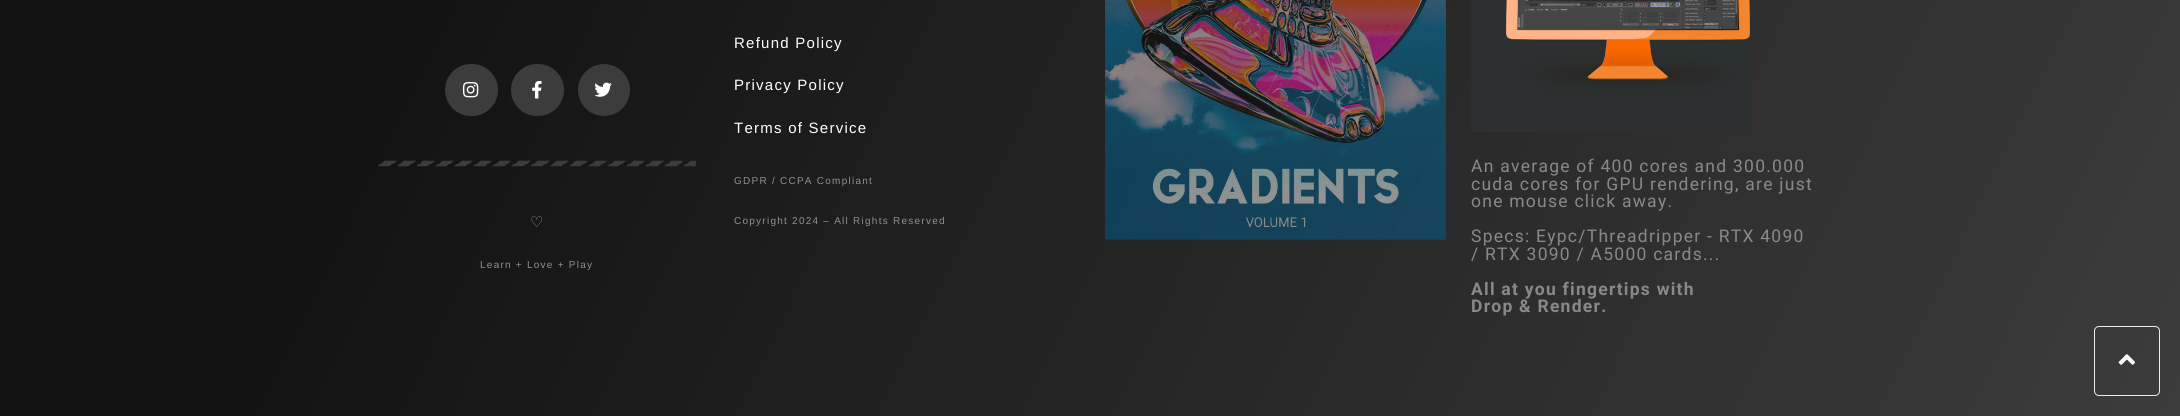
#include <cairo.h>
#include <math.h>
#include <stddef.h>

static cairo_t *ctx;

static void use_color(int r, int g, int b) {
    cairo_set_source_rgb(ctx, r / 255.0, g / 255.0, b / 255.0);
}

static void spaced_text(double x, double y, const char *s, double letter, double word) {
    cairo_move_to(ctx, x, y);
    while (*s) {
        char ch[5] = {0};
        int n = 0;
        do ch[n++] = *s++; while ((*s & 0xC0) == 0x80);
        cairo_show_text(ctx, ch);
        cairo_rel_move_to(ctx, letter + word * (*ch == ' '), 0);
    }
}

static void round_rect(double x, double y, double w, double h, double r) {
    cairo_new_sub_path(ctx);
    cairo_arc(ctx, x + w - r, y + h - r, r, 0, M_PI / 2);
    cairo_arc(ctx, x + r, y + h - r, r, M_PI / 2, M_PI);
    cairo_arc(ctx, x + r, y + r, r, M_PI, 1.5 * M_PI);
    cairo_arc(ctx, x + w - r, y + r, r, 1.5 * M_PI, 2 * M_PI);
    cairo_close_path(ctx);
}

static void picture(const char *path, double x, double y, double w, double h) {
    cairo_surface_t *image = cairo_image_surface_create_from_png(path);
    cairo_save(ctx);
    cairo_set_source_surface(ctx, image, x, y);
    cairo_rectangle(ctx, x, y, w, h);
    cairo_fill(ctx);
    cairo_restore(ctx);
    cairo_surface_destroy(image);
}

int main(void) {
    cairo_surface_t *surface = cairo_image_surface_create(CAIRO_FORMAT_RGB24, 2180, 416);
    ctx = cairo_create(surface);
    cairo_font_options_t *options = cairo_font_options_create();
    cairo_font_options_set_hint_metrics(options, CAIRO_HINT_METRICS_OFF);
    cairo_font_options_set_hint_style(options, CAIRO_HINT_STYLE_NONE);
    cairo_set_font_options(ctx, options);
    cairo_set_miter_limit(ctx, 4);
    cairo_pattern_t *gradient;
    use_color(255, 255, 255);
    cairo_paint(ctx);
    gradient = cairo_pattern_create_linear(34, -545, 2146, 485);
    cairo_pattern_add_color_stop_rgba(gradient, 0.24, 0.071, 0.071, 0.071, 1);
    cairo_pattern_add_color_stop_rgba(gradient, 1, 0.235, 0.235, 0.235, 1);
    cairo_set_source(ctx, gradient);
    cairo_pattern_destroy(gradient);
    cairo_rectangle(ctx, 0, 0, 2180, 416);
    cairo_fill(ctx);
    use_color(60, 60, 60);
    round_rect(445, 64, 53, 52, 26);
    cairo_fill(ctx);
    picture("img1.png", 462, 82, 17, 16);
    round_rect(511, 64, 53, 52, 26);
    cairo_fill(ctx);
    picture("img2.png", 532, 80, 10, 19);
    cairo_arc(ctx, 604, 90, 26, 0, 2 * M_PI);
    cairo_fill(ctx);
    picture("img3.png", 594, 82, 18, 15);
    picture("img4.png", 378, 160, 318, 7);
    cairo_select_font_face(ctx, "DejaVu Sans", CAIRO_FONT_SLANT_NORMAL, CAIRO_FONT_WEIGHT_NORMAL);
    cairo_set_font_size(ctx, 15);
    use_color(144, 144, 144);
    spaced_text(530, 227, "♡", 1.25, 0);
    cairo_select_font_face(ctx, "Liberation Sans", CAIRO_FONT_SLANT_NORMAL, CAIRO_FONT_WEIGHT_NORMAL);
    cairo_set_font_size(ctx, 10);
    spaced_text(480, 268, "Learn + Love + Play", 1.25, 0);
    cairo_set_font_size(ctx, 15);
    use_color(255, 255, 255);
    spaced_text(734, 48, "Refund Policy", 1.25, 0);
    spaced_text(734, 90, "Privacy Policy", 1.25, 0);
    spaced_text(734, 133, "Terms of Service", 1.25, 0);
    cairo_set_font_size(ctx, 10);
    use_color(144, 144, 144);
    spaced_text(734, 184, "GDPR / CCPA Compliant", 1.25, 0);
    spaced_text(734, 224, "Copyright 2024 – All Rights Reserved", 1.25, 0);
    picture("img5.png", 1105, 0, 341, 240);
    picture("img6.png", 1471, 0, 279, 132);
    cairo_select_font_face(ctx, "Roboto", CAIRO_FONT_SLANT_NORMAL, CAIRO_FONT_WEIGHT_NORMAL);
    cairo_set_font_size(ctx, 17.5);
    use_color(137, 137, 137);
    spaced_text(1471, 172, "An average of 400 cores and 300.000", 1.25, 0);
    spaced_text(1471, 190, "cuda cores for GPU rendering, are just", 1.25, 0);
    spaced_text(1471, 207, "one mouse click away.", 1.25, 0);
    spaced_text(1471, 242, "Specs: Eypc/Threadripper - RTX 4090", 1.25, 0);
    spaced_text(1471, 260, "/ RTX 3090 / A5000 cards...", 1.25, 0);
    cairo_select_font_face(ctx, "Roboto", CAIRO_FONT_SLANT_NORMAL, CAIRO_FONT_WEIGHT_BOLD);
    spaced_text(1471, 295, "All at you fingertips with", 1.25, 0);
    spaced_text(1471, 312, "Drop & Render.", 1.25, 0);
    round_rect(2094.5, 326.5, 65, 69, 4.5);
    use_color(233, 236, 239);
    cairo_set_line_width(ctx, 1);
    cairo_stroke(ctx);
    picture("img7.png", 2118, 354, 17, 11);
    cairo_surface_write_to_png(surface, "result.png");
    cairo_font_options_destroy(options);
    cairo_destroy(ctx);
    cairo_surface_destroy(surface);
    return 0;
}
